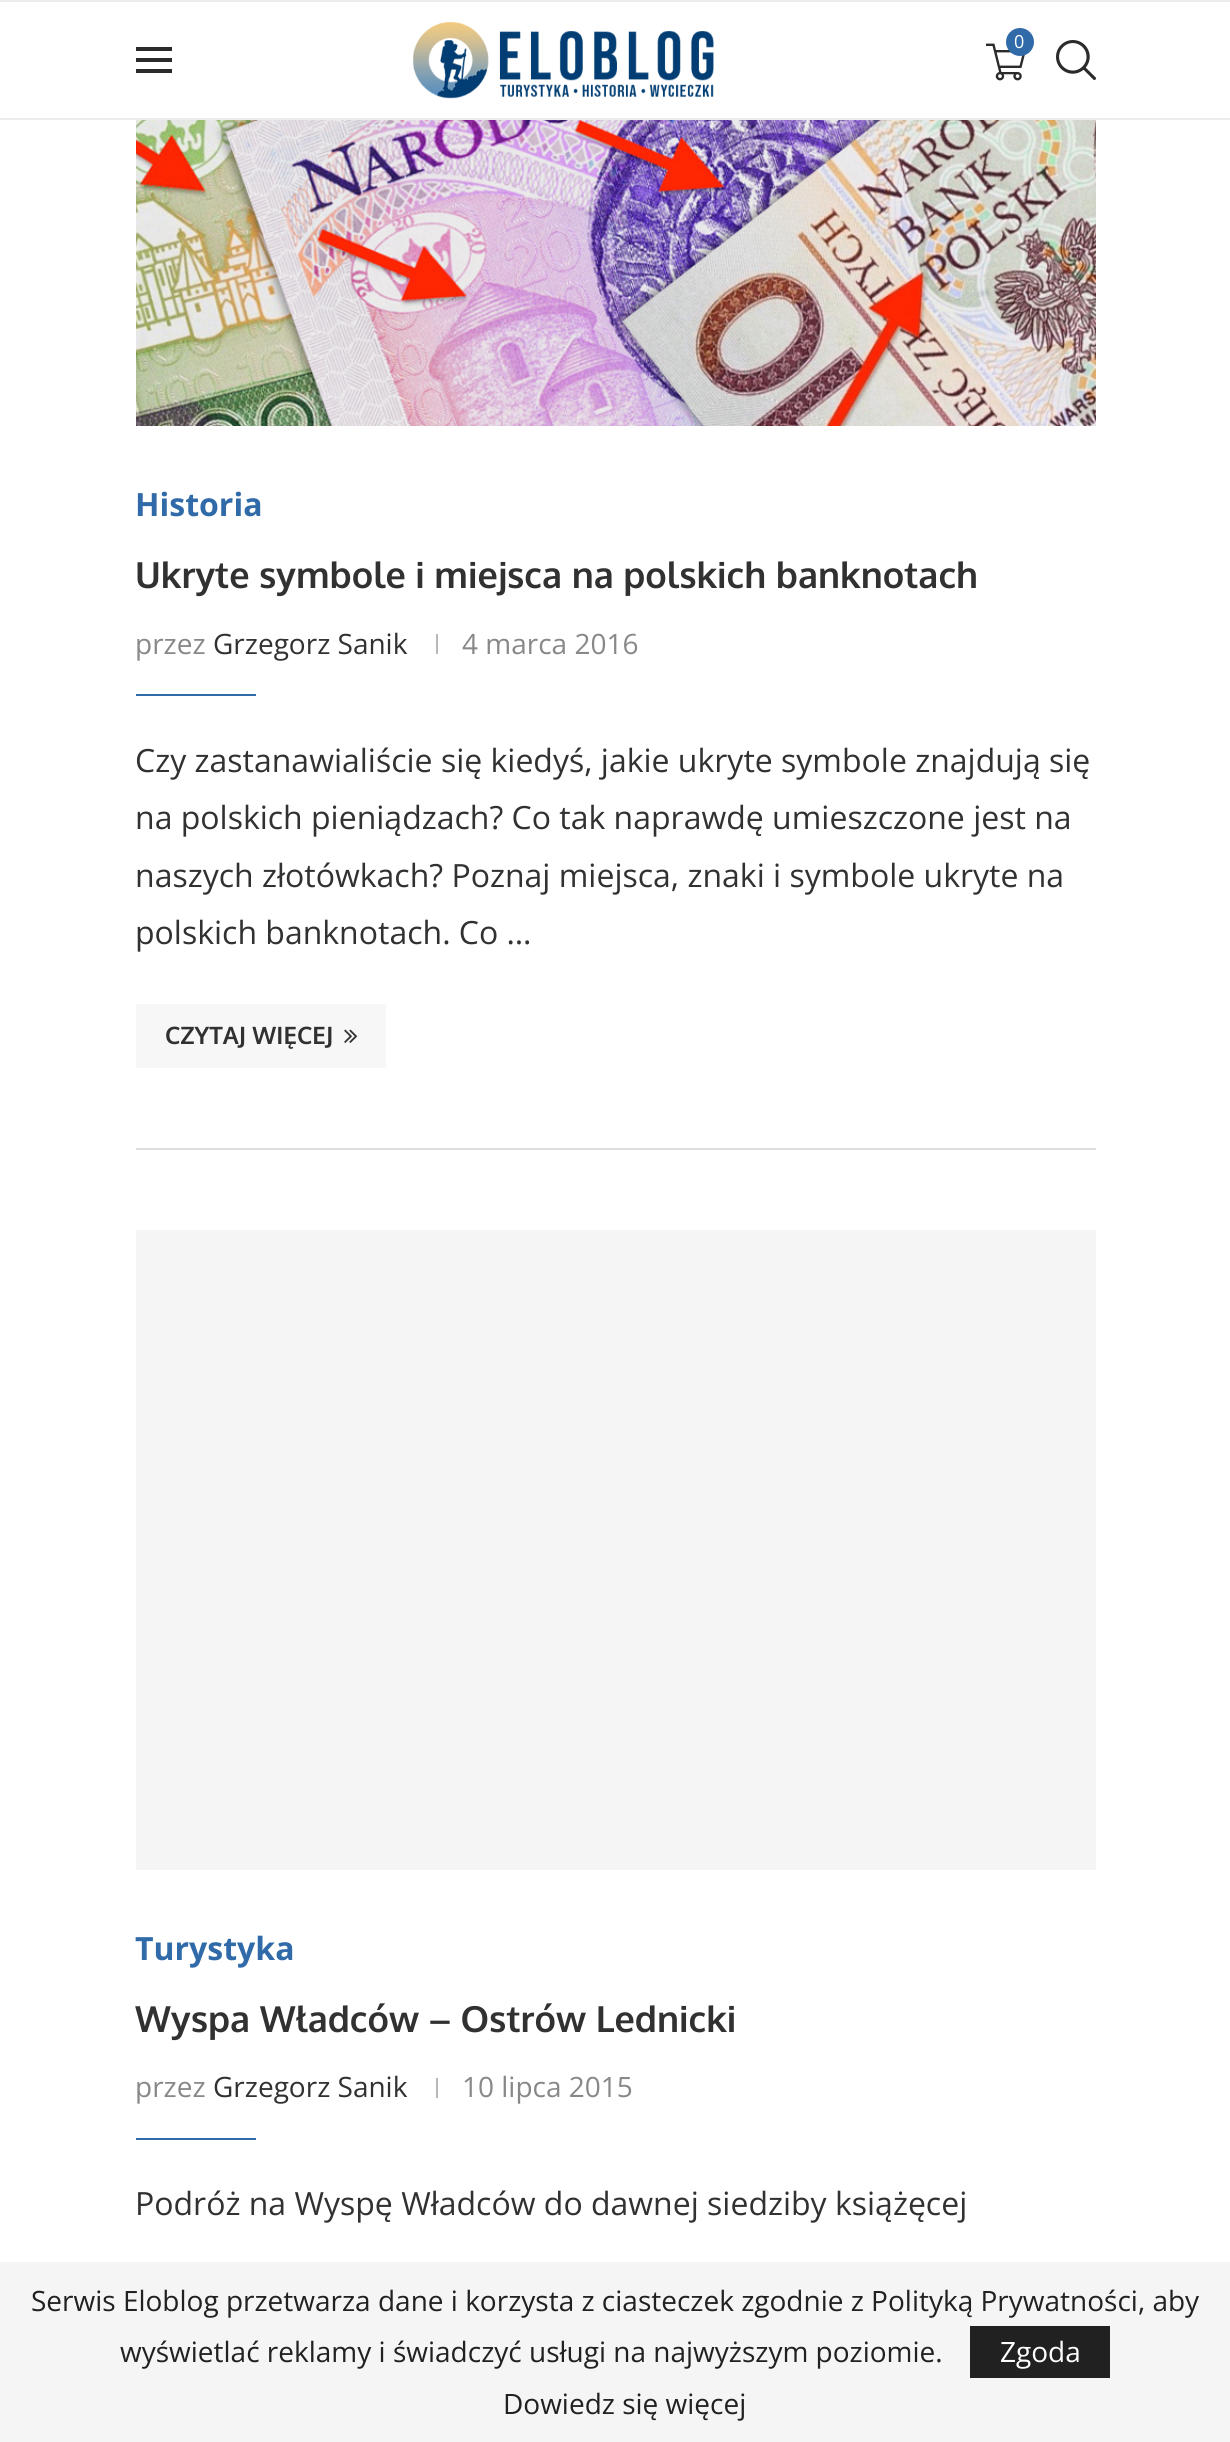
#include <cairo.h>
#include <math.h>
#include <stddef.h>

static cairo_t *ctx;

static void use_color(int r, int g, int b) {
    cairo_set_source_rgb(ctx, r / 255.0, g / 255.0, b / 255.0);
}

static void picture(const char *path, double x, double y, double w, double h) {
    cairo_surface_t *image = cairo_image_surface_create_from_png(path);
    cairo_save(ctx);
    cairo_set_source_surface(ctx, image, x, y);
    cairo_rectangle(ctx, x, y, w, h);
    cairo_fill(ctx);
    cairo_restore(ctx);
    cairo_surface_destroy(image);
}

int main(void) {
    cairo_surface_t *surface = cairo_image_surface_create(CAIRO_FORMAT_RGB24, 1230, 2442);
    ctx = cairo_create(surface);
    cairo_font_options_t *options = cairo_font_options_create();
    cairo_font_options_set_hint_metrics(options, CAIRO_HINT_METRICS_OFF);
    cairo_font_options_set_hint_style(options, CAIRO_HINT_STYLE_NONE);
    cairo_set_font_options(ctx, options);
    cairo_set_miter_limit(ctx, 4);
    use_color(255, 255, 255);
    cairo_paint(ctx);
    use_color(236, 236, 236);
    cairo_rectangle(ctx, 0, 0, 1230, 2);
    cairo_fill(ctx);
    cairo_rectangle(ctx, 0, 118, 1230, 2);
    cairo_fill(ctx);
    use_color(43, 43, 43);
    cairo_rectangle(ctx, 136, 47, 36, 4);
    cairo_fill(ctx);
    cairo_rectangle(ctx, 136, 58, 36, 4);
    cairo_fill(ctx);
    cairo_rectangle(ctx, 136, 69, 36, 4);
    cairo_fill(ctx);
    picture("img1.png", 413, 22, 301, 77);
    picture("img2.png", 986, 43, 39, 38);
    use_color(48, 106, 168);
    cairo_arc(ctx, 1020, 42, 14, 0, 2 * M_PI);
    cairo_fill(ctx);
    cairo_select_font_face(ctx, "Open Sans", CAIRO_FONT_SLANT_NORMAL, CAIRO_FONT_WEIGHT_NORMAL);
    cairo_set_font_size(ctx, 18);
    use_color(255, 255, 255);
    cairo_move_to(ctx, 1014, 48);
    cairo_show_text(ctx, "0");
    picture("img3.png", 1056, 40, 40, 40);
    use_color(222, 222, 222);
    cairo_rectangle(ctx, 136, 1148, 960, 2);
    cairo_fill(ctx);
    picture("img4.png", 136, 120, 960, 306);
    cairo_select_font_face(ctx, "Open Sans", CAIRO_FONT_SLANT_NORMAL, CAIRO_FONT_WEIGHT_BOLD);
    cairo_set_font_size(ctx, 32);
    use_color(48, 106, 168);
    cairo_move_to(ctx, 135, 516);
    cairo_show_text(ctx, "Historia");
    cairo_select_font_face(ctx, "Oxygen", CAIRO_FONT_SLANT_NORMAL, CAIRO_FONT_WEIGHT_BOLD);
    cairo_set_font_size(ctx, 36);
    use_color(49, 49, 49);
    cairo_move_to(ctx, 135, 588);
    cairo_show_text(ctx, "Ukryte symbole i miejsca na polskich banknotach");
    cairo_select_font_face(ctx, "Open Sans", CAIRO_FONT_SLANT_NORMAL, CAIRO_FONT_WEIGHT_NORMAL);
    cairo_set_font_size(ctx, 28);
    use_color(136, 136, 136);
    cairo_move_to(ctx, 135, 654);
    cairo_show_text(ctx, "przez");
    use_color(49, 49, 49);
    cairo_move_to(ctx, 213, 654);
    cairo_show_text(ctx, "Grzegorz Sanik");
    use_color(184, 184, 184);
    cairo_rectangle(ctx, 436, 634, 2, 20);
    cairo_fill(ctx);
    use_color(136, 136, 136);
    cairo_move_to(ctx, 462, 654);
    cairo_show_text(ctx, "4 marca 2016");
    use_color(48, 106, 168);
    cairo_rectangle(ctx, 136, 694, 120, 2);
    cairo_fill(ctx);
    cairo_set_font_size(ctx, 32);
    use_color(49, 49, 49);
    cairo_move_to(ctx, 135, 772);
    cairo_show_text(ctx, "Czy zastanawialiście się kiedyś, jakie ukryte symbole znajdują się");
    cairo_move_to(ctx, 135, 829);
    cairo_show_text(ctx, "na polskich pieniądzach? Co tak naprawdę umieszczone jest na");
    cairo_move_to(ctx, 135, 887);
    cairo_show_text(ctx, "naszych złotówkach? Poznaj miejsca, znaki i symbole ukryte na");
    cairo_move_to(ctx, 135, 944);
    cairo_show_text(ctx, "polskich banknotach. Co …");
    use_color(247, 247, 247);
    cairo_rectangle(ctx, 136, 1004, 250, 64);
    cairo_fill(ctx);
    cairo_select_font_face(ctx, "Oxygen", CAIRO_FONT_SLANT_NORMAL, CAIRO_FONT_WEIGHT_BOLD);
    cairo_set_font_size(ctx, 24);
    use_color(49, 49, 49);
    cairo_move_to(ctx, 165, 1044);
    cairo_show_text(ctx, "CZYTAJ WIĘCEJ");
    picture("img5.png", 344, 1029, 14, 14);
    use_color(245, 245, 245);
    cairo_rectangle(ctx, 136, 1230, 960, 640);
    cairo_fill(ctx);
    cairo_select_font_face(ctx, "Open Sans", CAIRO_FONT_SLANT_NORMAL, CAIRO_FONT_WEIGHT_BOLD);
    cairo_set_font_size(ctx, 32);
    use_color(48, 106, 168);
    cairo_move_to(ctx, 135, 1960);
    cairo_show_text(ctx, "Turystyka");
    cairo_select_font_face(ctx, "Oxygen", CAIRO_FONT_SLANT_NORMAL, CAIRO_FONT_WEIGHT_BOLD);
    cairo_set_font_size(ctx, 36);
    use_color(49, 49, 49);
    cairo_move_to(ctx, 135, 2032);
    cairo_show_text(ctx, "Wyspa Władców – Ostrów Lednicki");
    cairo_select_font_face(ctx, "Open Sans", CAIRO_FONT_SLANT_NORMAL, CAIRO_FONT_WEIGHT_NORMAL);
    cairo_set_font_size(ctx, 28);
    use_color(136, 136, 136);
    cairo_move_to(ctx, 135, 2097);
    cairo_show_text(ctx, "przez");
    use_color(49, 49, 49);
    cairo_move_to(ctx, 213, 2097);
    cairo_show_text(ctx, "Grzegorz Sanik");
    use_color(184, 184, 184);
    cairo_rectangle(ctx, 436, 2078, 2, 20);
    cairo_fill(ctx);
    use_color(136, 136, 136);
    cairo_move_to(ctx, 462, 2097);
    cairo_show_text(ctx, "10 lipca 2015");
    use_color(48, 106, 168);
    cairo_rectangle(ctx, 136, 2138, 120, 2);
    cairo_fill(ctx);
    cairo_set_font_size(ctx, 32);
    use_color(49, 49, 49);
    cairo_move_to(ctx, 135, 2215);
    cairo_show_text(ctx, "Podróż na Wyspę Władców do dawnej siedziby książęcej");
    use_color(245, 245, 245);
    cairo_rectangle(ctx, 0, 2262, 1230, 180);
    cairo_fill(ctx);
    cairo_set_font_size(ctx, 28);
    use_color(33, 33, 33);
    cairo_move_to(ctx, 31, 2311);
    cairo_show_text(ctx, "Serwis Eloblog przetwarza dane i korzysta z ciasteczek zgodnie z Polityką Prywatności, aby");
    cairo_move_to(ctx, 120, 2362);
    cairo_show_text(ctx, "wyświetlać reklamy i świadczyć usługi na najwyższym poziomie.");
    cairo_rectangle(ctx, 970, 2326, 140, 52);
    cairo_fill(ctx);
    use_color(255, 255, 255);
    cairo_move_to(ctx, 1000, 2362);
    cairo_show_text(ctx, "Zgoda");
    use_color(33, 33, 33);
    cairo_move_to(ctx, 503, 2414);
    cairo_show_text(ctx, "Dowiedz się więcej");
    cairo_surface_write_to_png(surface, "result.png");
    cairo_font_options_destroy(options);
    cairo_destroy(ctx);
    cairo_surface_destroy(surface);
    return 0;
}
